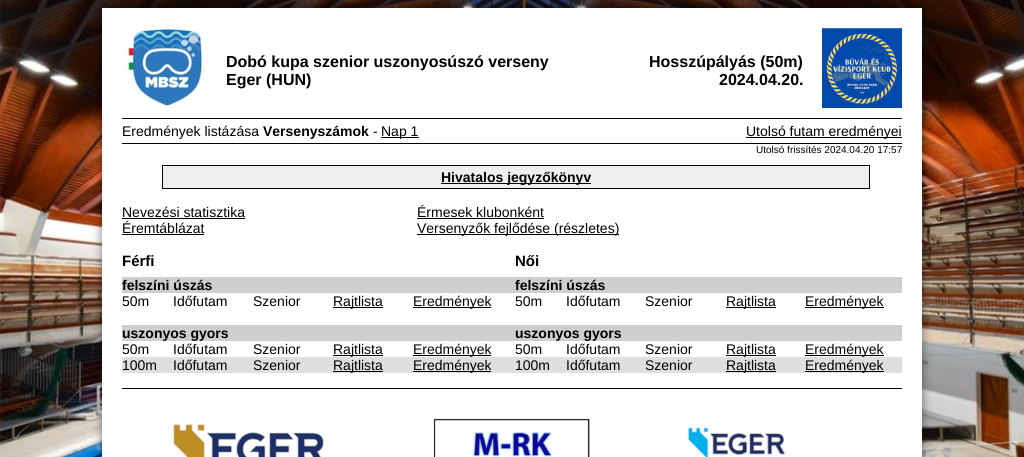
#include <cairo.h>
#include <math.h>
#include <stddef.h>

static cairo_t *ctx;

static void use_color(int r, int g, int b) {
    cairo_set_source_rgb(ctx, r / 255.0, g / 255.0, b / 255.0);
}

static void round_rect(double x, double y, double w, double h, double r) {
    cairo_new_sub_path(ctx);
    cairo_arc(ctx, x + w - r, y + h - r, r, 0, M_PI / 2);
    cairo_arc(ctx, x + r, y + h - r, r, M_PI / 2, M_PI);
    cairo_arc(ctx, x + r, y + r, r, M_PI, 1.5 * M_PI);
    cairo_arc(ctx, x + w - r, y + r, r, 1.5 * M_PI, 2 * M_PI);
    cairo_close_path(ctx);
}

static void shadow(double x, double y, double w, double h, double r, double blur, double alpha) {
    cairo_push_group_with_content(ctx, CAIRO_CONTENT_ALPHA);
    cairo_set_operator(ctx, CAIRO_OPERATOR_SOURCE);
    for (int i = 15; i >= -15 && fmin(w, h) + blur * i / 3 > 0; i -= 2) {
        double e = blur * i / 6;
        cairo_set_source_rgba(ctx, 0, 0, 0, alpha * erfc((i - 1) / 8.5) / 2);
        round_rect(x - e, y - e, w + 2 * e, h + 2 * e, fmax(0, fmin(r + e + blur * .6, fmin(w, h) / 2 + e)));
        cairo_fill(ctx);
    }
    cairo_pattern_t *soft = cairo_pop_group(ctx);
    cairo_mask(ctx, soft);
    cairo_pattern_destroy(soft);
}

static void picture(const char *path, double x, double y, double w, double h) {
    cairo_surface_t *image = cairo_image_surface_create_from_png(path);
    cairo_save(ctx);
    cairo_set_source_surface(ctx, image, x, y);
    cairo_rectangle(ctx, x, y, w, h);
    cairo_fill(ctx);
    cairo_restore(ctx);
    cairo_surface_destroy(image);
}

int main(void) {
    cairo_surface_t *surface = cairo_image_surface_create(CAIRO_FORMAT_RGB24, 1024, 457);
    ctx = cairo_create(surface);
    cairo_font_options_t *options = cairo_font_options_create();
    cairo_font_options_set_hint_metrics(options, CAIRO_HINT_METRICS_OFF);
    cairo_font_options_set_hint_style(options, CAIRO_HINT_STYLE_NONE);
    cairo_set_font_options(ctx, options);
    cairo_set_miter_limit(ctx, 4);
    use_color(255, 255, 255);
    cairo_paint(ctx);
    picture("img1.png", 0, 0, 1024, 457);
    use_color(0, 0, 0);
    shadow(102, 8, 820, 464, 0, 5, 0.5);
    use_color(255, 255, 255);
    cairo_rectangle(ctx, 102, 8, 820, 449);
    cairo_fill(ctx);
    picture("img2.png", 122, 28, 84, 78);
    cairo_select_font_face(ctx, "Liberation Sans", CAIRO_FONT_SLANT_NORMAL, CAIRO_FONT_WEIGHT_BOLD);
    cairo_set_font_size(ctx, 16);
    use_color(0, 0, 0);
    cairo_move_to(ctx, 226, 67);
    cairo_show_text(ctx, "Dobó kupa szenior uszonyosúszó verseny");
    cairo_move_to(ctx, 649, 67);
    cairo_show_text(ctx, "Hosszúpályás (50m)");
    picture("img3.png", 822, 28, 80, 80);
    cairo_move_to(ctx, 226, 85);
    cairo_show_text(ctx, "Eger (HUN)");
    cairo_move_to(ctx, 719, 85);
    cairo_show_text(ctx, "2024.04.20.");
    cairo_rectangle(ctx, 122, 118, 780, 1);
    cairo_fill(ctx);
    cairo_rectangle(ctx, 122, 143, 780, 1);
    cairo_fill(ctx);
    cairo_select_font_face(ctx, "Liberation Sans", CAIRO_FONT_SLANT_NORMAL, CAIRO_FONT_WEIGHT_NORMAL);
    cairo_set_font_size(ctx, 14);
    cairo_move_to(ctx, 122, 136);
    cairo_show_text(ctx, "Eredmények listázása");
    cairo_select_font_face(ctx, "Liberation Sans", CAIRO_FONT_SLANT_NORMAL, CAIRO_FONT_WEIGHT_BOLD);
    cairo_move_to(ctx, 263, 136);
    cairo_show_text(ctx, "Versenyszámok");
    cairo_select_font_face(ctx, "Liberation Sans", CAIRO_FONT_SLANT_NORMAL, CAIRO_FONT_WEIGHT_NORMAL);
    cairo_move_to(ctx, 373, 136);
    cairo_show_text(ctx, "-");
    cairo_rectangle(ctx, 381, 137, 38, 1);
    cairo_fill(ctx);
    cairo_move_to(ctx, 381, 136);
    cairo_show_text(ctx, "Nap 1");
    cairo_rectangle(ctx, 746, 137, 156, 1);
    cairo_fill(ctx);
    cairo_move_to(ctx, 746, 136);
    cairo_show_text(ctx, "Utolsó futam eredményei");
    cairo_set_font_size(ctx, 10);
    cairo_move_to(ctx, 756, 153);
    cairo_show_text(ctx, "Utolsó frissítés 2024.04.20 17:57");
    use_color(239, 239, 239);
    cairo_rectangle(ctx, 162.5, 165.5, 707, 23);
    cairo_fill_preserve(ctx);
    use_color(0, 0, 0);
    cairo_set_line_width(ctx, 1);
    cairo_stroke(ctx);
    cairo_rectangle(ctx, 441, 183, 150, 1);
    cairo_fill(ctx);
    cairo_select_font_face(ctx, "Liberation Sans", CAIRO_FONT_SLANT_NORMAL, CAIRO_FONT_WEIGHT_BOLD);
    cairo_set_font_size(ctx, 14);
    cairo_move_to(ctx, 441, 182);
    cairo_show_text(ctx, "Hivatalos jegyzőkönyv");
    cairo_select_font_face(ctx, "Liberation Sans", CAIRO_FONT_SLANT_NORMAL, CAIRO_FONT_WEIGHT_NORMAL);
    cairo_move_to(ctx, 122, 217);
    cairo_show_text(ctx, "Nevezési statisztika");
    cairo_rectangle(ctx, 122, 218, 123, 1);
    cairo_fill(ctx);
    cairo_move_to(ctx, 417, 217);
    cairo_show_text(ctx, "Érmesek klubonként");
    cairo_rectangle(ctx, 417, 218, 127, 1);
    cairo_fill(ctx);
    cairo_move_to(ctx, 122, 233);
    cairo_show_text(ctx, "Éremtáblázat");
    cairo_rectangle(ctx, 122, 234, 82, 1);
    cairo_fill(ctx);
    cairo_rectangle(ctx, 417, 234, 202, 1);
    cairo_fill(ctx);
    cairo_move_to(ctx, 417, 233);
    cairo_show_text(ctx, "Versenyzők fejlődése (részletes)");
    cairo_select_font_face(ctx, "Liberation Sans", CAIRO_FONT_SLANT_NORMAL, CAIRO_FONT_WEIGHT_BOLD);
    cairo_set_font_size(ctx, 15);
    cairo_move_to(ctx, 122, 266);
    cairo_show_text(ctx, "Férfi");
    cairo_move_to(ctx, 515, 266);
    cairo_show_text(ctx, "Női");
    use_color(207, 207, 207);
    cairo_rectangle(ctx, 122, 277, 780, 16);
    cairo_fill(ctx);
    cairo_set_font_size(ctx, 14);
    use_color(0, 0, 0);
    cairo_move_to(ctx, 122, 290);
    cairo_show_text(ctx, "felszíni úszás");
    cairo_move_to(ctx, 515, 290);
    cairo_show_text(ctx, "felszíni úszás");
    cairo_select_font_face(ctx, "Liberation Sans", CAIRO_FONT_SLANT_NORMAL, CAIRO_FONT_WEIGHT_NORMAL);
    cairo_move_to(ctx, 122, 306);
    cairo_show_text(ctx, "50m");
    cairo_move_to(ctx, 173, 306);
    cairo_show_text(ctx, "Időfutam");
    cairo_move_to(ctx, 253, 306);
    cairo_show_text(ctx, "Szenior");
    cairo_rectangle(ctx, 333, 307, 50, 1);
    cairo_fill(ctx);
    cairo_move_to(ctx, 333, 306);
    cairo_show_text(ctx, "Rajtlista");
    cairo_rectangle(ctx, 413, 307, 78, 1);
    cairo_fill(ctx);
    cairo_move_to(ctx, 413, 306);
    cairo_show_text(ctx, "Eredmények");
    cairo_move_to(ctx, 515, 306);
    cairo_show_text(ctx, "50m");
    cairo_move_to(ctx, 566, 306);
    cairo_show_text(ctx, "Időfutam");
    cairo_move_to(ctx, 645, 306);
    cairo_show_text(ctx, "Szenior");
    cairo_rectangle(ctx, 726, 307, 50, 1);
    cairo_fill(ctx);
    cairo_move_to(ctx, 726, 306);
    cairo_show_text(ctx, "Rajtlista");
    cairo_rectangle(ctx, 805, 307, 79, 1);
    cairo_fill(ctx);
    cairo_move_to(ctx, 805, 306);
    cairo_show_text(ctx, "Eredmények");
    use_color(207, 207, 207);
    cairo_rectangle(ctx, 122, 325, 780, 16);
    cairo_fill(ctx);
    cairo_select_font_face(ctx, "Liberation Sans", CAIRO_FONT_SLANT_NORMAL, CAIRO_FONT_WEIGHT_BOLD);
    use_color(0, 0, 0);
    cairo_move_to(ctx, 122, 338);
    cairo_show_text(ctx, "uszonyos gyors");
    cairo_move_to(ctx, 515, 338);
    cairo_show_text(ctx, "uszonyos gyors");
    cairo_select_font_face(ctx, "Liberation Sans", CAIRO_FONT_SLANT_NORMAL, CAIRO_FONT_WEIGHT_NORMAL);
    cairo_move_to(ctx, 122, 354);
    cairo_show_text(ctx, "50m");
    cairo_move_to(ctx, 173, 354);
    cairo_show_text(ctx, "Időfutam");
    cairo_move_to(ctx, 253, 354);
    cairo_show_text(ctx, "Szenior");
    cairo_rectangle(ctx, 333, 355, 50, 1);
    cairo_fill(ctx);
    cairo_move_to(ctx, 333, 354);
    cairo_show_text(ctx, "Rajtlista");
    cairo_rectangle(ctx, 413, 355, 78, 1);
    cairo_fill(ctx);
    cairo_move_to(ctx, 413, 354);
    cairo_show_text(ctx, "Eredmények");
    cairo_move_to(ctx, 515, 354);
    cairo_show_text(ctx, "50m");
    cairo_move_to(ctx, 566, 354);
    cairo_show_text(ctx, "Időfutam");
    cairo_move_to(ctx, 645, 354);
    cairo_show_text(ctx, "Szenior");
    cairo_rectangle(ctx, 726, 355, 50, 1);
    cairo_fill(ctx);
    cairo_move_to(ctx, 726, 354);
    cairo_show_text(ctx, "Rajtlista");
    cairo_rectangle(ctx, 805, 355, 79, 1);
    cairo_fill(ctx);
    cairo_move_to(ctx, 805, 354);
    cairo_show_text(ctx, "Eredmények");
    use_color(223, 223, 223);
    cairo_rectangle(ctx, 122, 357, 780, 16);
    cairo_fill(ctx);
    use_color(0, 0, 0);
    cairo_move_to(ctx, 122, 370);
    cairo_show_text(ctx, "100m");
    cairo_move_to(ctx, 173, 370);
    cairo_show_text(ctx, "Időfutam");
    cairo_move_to(ctx, 253, 370);
    cairo_show_text(ctx, "Szenior");
    cairo_rectangle(ctx, 333, 371, 50, 1);
    cairo_fill(ctx);
    cairo_move_to(ctx, 333, 370);
    cairo_show_text(ctx, "Rajtlista");
    cairo_rectangle(ctx, 413, 371, 78, 1);
    cairo_fill(ctx);
    cairo_move_to(ctx, 413, 370);
    cairo_show_text(ctx, "Eredmények");
    cairo_move_to(ctx, 515, 370);
    cairo_show_text(ctx, "100m");
    cairo_move_to(ctx, 566, 370);
    cairo_show_text(ctx, "Időfutam");
    cairo_move_to(ctx, 645, 370);
    cairo_show_text(ctx, "Szenior");
    cairo_rectangle(ctx, 726, 371, 50, 1);
    cairo_fill(ctx);
    cairo_move_to(ctx, 726, 370);
    cairo_show_text(ctx, "Rajtlista");
    cairo_rectangle(ctx, 805, 371, 79, 1);
    cairo_fill(ctx);
    cairo_move_to(ctx, 805, 370);
    cairo_show_text(ctx, "Eredmények");
    cairo_rectangle(ctx, 122, 388, 780, 1);
    cairo_fill(ctx);
    picture("img4.png", 173, 424, 151, 33);
    picture("img5.png", 433, 418, 157, 39);
    picture("img6.png", 688, 427, 98, 30);
    cairo_surface_write_to_png(surface, "result.png");
    cairo_font_options_destroy(options);
    cairo_destroy(ctx);
    cairo_surface_destroy(surface);
    return 0;
}
